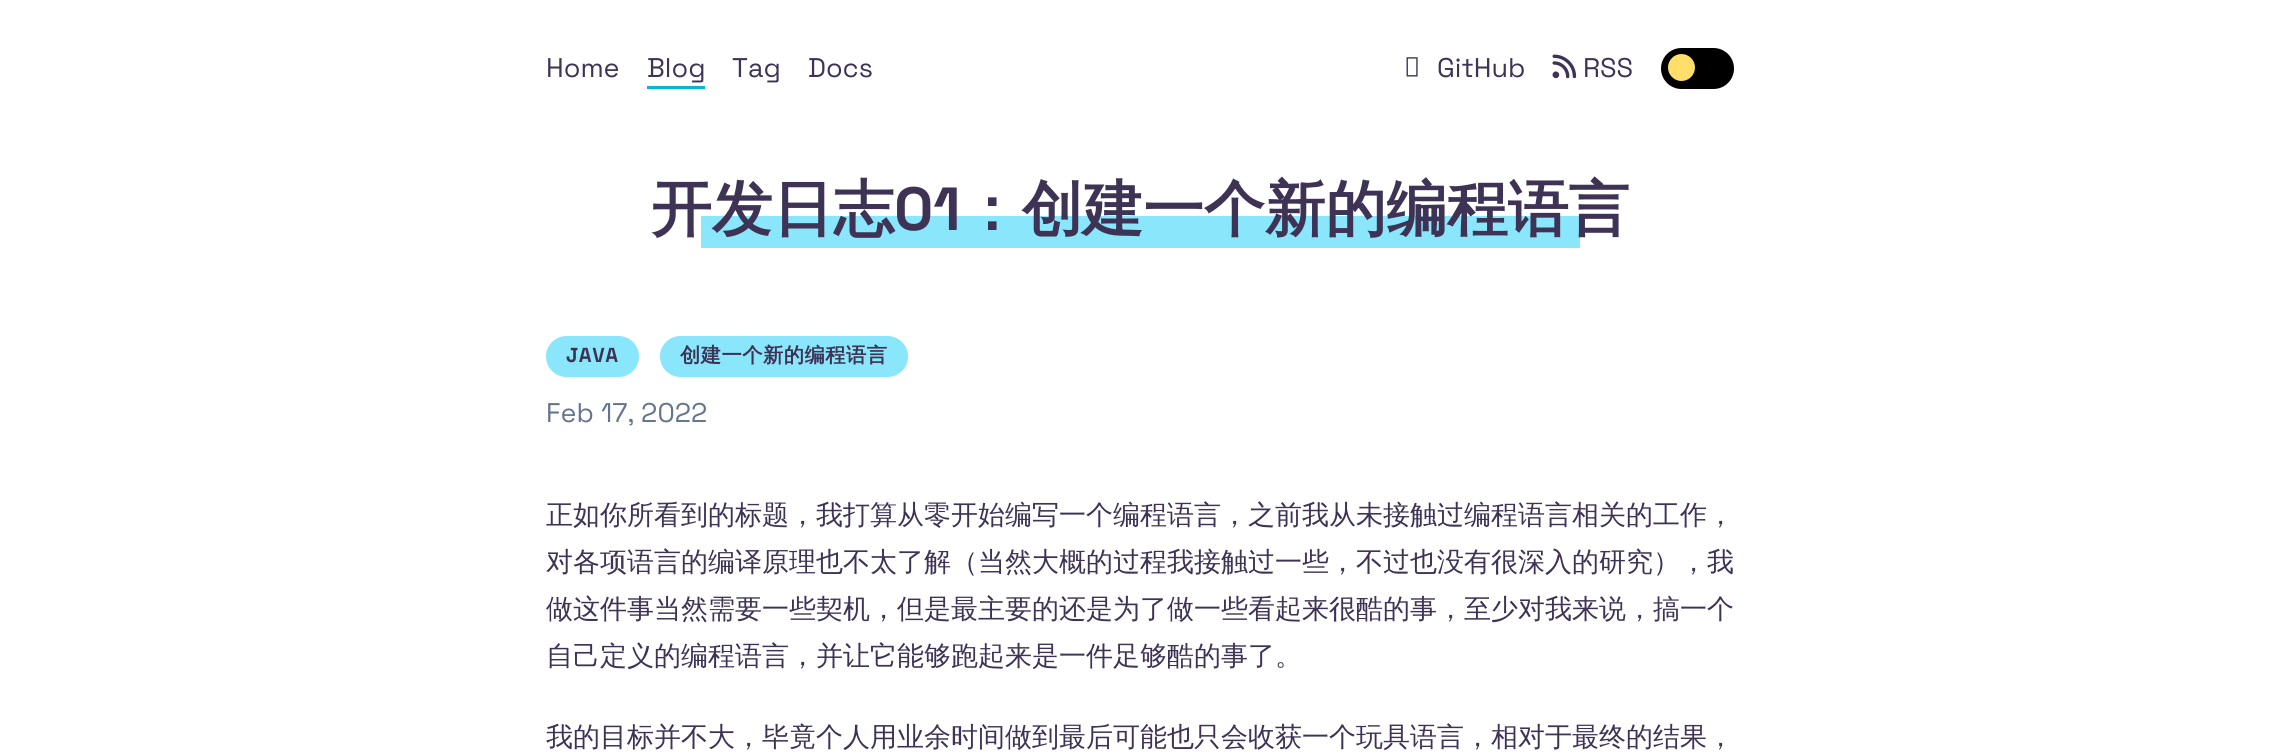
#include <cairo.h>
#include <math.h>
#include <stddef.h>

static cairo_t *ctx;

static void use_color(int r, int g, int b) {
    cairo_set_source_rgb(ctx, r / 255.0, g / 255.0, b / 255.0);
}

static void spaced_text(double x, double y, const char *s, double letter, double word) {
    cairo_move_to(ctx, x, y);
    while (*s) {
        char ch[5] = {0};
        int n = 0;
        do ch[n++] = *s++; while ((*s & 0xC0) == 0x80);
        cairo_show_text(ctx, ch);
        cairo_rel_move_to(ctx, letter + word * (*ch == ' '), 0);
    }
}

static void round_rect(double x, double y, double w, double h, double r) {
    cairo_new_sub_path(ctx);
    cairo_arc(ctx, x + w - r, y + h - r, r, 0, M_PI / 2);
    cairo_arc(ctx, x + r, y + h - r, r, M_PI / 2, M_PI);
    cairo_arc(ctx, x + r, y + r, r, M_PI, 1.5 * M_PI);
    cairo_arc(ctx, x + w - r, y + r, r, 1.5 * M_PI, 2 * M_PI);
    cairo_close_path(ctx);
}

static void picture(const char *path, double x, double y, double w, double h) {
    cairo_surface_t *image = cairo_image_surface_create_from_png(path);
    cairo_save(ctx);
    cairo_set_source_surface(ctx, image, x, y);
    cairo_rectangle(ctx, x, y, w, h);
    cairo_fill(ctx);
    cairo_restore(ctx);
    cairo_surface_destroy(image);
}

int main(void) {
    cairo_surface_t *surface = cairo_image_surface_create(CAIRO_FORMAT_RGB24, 2280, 754);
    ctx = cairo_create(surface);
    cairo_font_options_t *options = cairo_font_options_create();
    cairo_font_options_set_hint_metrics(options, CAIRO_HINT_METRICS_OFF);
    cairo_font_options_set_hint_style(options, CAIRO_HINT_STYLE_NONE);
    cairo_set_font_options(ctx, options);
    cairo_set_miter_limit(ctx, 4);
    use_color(255, 255, 255);
    cairo_paint(ctx);
    cairo_select_font_face(ctx, "Space Grotesk Light", CAIRO_FONT_SLANT_NORMAL, CAIRO_FONT_WEIGHT_NORMAL);
    cairo_set_font_size(ctx, 27);
    use_color(62, 51, 85);
    cairo_move_to(ctx, 546, 77);
    cairo_show_text(ctx, "Home");
    cairo_move_to(ctx, 647, 77);
    cairo_show_text(ctx, "Blog");
    use_color(6, 182, 212);
    cairo_rectangle(ctx, 647, 86, 58, 3);
    cairo_fill(ctx);
    use_color(62, 51, 85);
    cairo_move_to(ctx, 732, 77);
    cairo_show_text(ctx, "Tag");
    cairo_move_to(ctx, 808, 77);
    cairo_show_text(ctx, "Docs");
    picture("img1.png", 1406, 57, 12, 20);
    cairo_move_to(ctx, 1437, 77);
    cairo_show_text(ctx, "GitHub");
    picture("img2.png", 1552, 54, 25, 25);
    cairo_move_to(ctx, 1583, 77);
    cairo_show_text(ctx, "RSS");
    use_color(0, 0, 0);
    round_rect(1661, 48, 73, 41, 20.5);
    cairo_fill(ctx);
    use_color(255, 222, 105);
    cairo_arc(ctx, 1681.5, 67.5, 13.5, 0, 2 * M_PI);
    cairo_fill(ctx);
    use_color(138, 230, 251);
    cairo_rectangle(ctx, 701, 216, 879, 32);
    cairo_fill(ctx);
    cairo_select_font_face(ctx, "WenQuanYi Zen Hei", CAIRO_FONT_SLANT_NORMAL, CAIRO_FONT_WEIGHT_BOLD);
    cairo_set_font_size(ctx, 60.75);
    use_color(62, 51, 85);
    cairo_move_to(ctx, 651, 230);
    cairo_show_text(ctx, "开发日志");
    cairo_select_font_face(ctx, "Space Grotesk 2 Light", CAIRO_FONT_SLANT_NORMAL, CAIRO_FONT_WEIGHT_NORMAL);
    cairo_move_to(ctx, 894, 230);
    cairo_show_text(ctx, "01");
    cairo_select_font_face(ctx, "WenQuanYi Zen Hei", CAIRO_FONT_SLANT_NORMAL, CAIRO_FONT_WEIGHT_BOLD);
    cairo_move_to(ctx, 961, 230);
    cairo_show_text(ctx, "：创建一个新的编程语言");
    use_color(138, 230, 251);
    round_rect(546, 336, 93, 41, 20.5);
    cairo_fill(ctx);
    cairo_select_font_face(ctx, "Space Grotesk 2 Light", CAIRO_FONT_SLANT_NORMAL, CAIRO_FONT_WEIGHT_NORMAL);
    cairo_set_font_size(ctx, 20.25);
    use_color(62, 51, 85);
    spaced_text(566, 362, "JAVA", 0.5, 0);
    use_color(138, 230, 251);
    round_rect(660, 336, 248, 41, 20.5);
    cairo_fill(ctx);
    cairo_select_font_face(ctx, "WenQuanYi Zen Hei", CAIRO_FONT_SLANT_NORMAL, CAIRO_FONT_WEIGHT_BOLD);
    use_color(62, 51, 85);
    spaced_text(680, 362, "创建一个新的编程语言", 0.5, 0);
    cairo_select_font_face(ctx, "Space Grotesk Light", CAIRO_FONT_SLANT_NORMAL, CAIRO_FONT_WEIGHT_NORMAL);
    cairo_set_font_size(ctx, 27);
    use_color(100, 116, 139);
    cairo_move_to(ctx, 546, 422);
    cairo_show_text(ctx, "Feb 17, 2022");
    cairo_select_font_face(ctx, "WenQuanYi Zen Hei Medium", CAIRO_FONT_SLANT_NORMAL, CAIRO_FONT_WEIGHT_NORMAL);
    use_color(62, 51, 85);
    cairo_move_to(ctx, 546, 524);
    cairo_show_text(ctx, "正如你所看到的标题，我打算从零开始编写一个编程语言，之前我从未接触过编程语言相关的工作，");
    cairo_move_to(ctx, 546, 571);
    cairo_show_text(ctx, "对各项语言的编译原理也不太了解（当然大概的过程我接触过一些，不过也没有很深入的研究），我");
    cairo_move_to(ctx, 546, 618);
    cairo_show_text(ctx, "做这件事当然需要一些契机，但是最主要的还是为了做一些看起来很酷的事，至少对我来说，搞一个");
    cairo_move_to(ctx, 546, 665);
    cairo_show_text(ctx, "自己定义的编程语言，并让它能够跑起来是一件足够酷的事了。");
    cairo_move_to(ctx, 546, 746);
    cairo_show_text(ctx, "我的目标并不大，毕竟个人用业余时间做到最后可能也只会收获一个玩具语言，相对于最终的结果，");
    cairo_surface_write_to_png(surface, "result.png");
    cairo_font_options_destroy(options);
    cairo_destroy(ctx);
    cairo_surface_destroy(surface);
    return 0;
}
